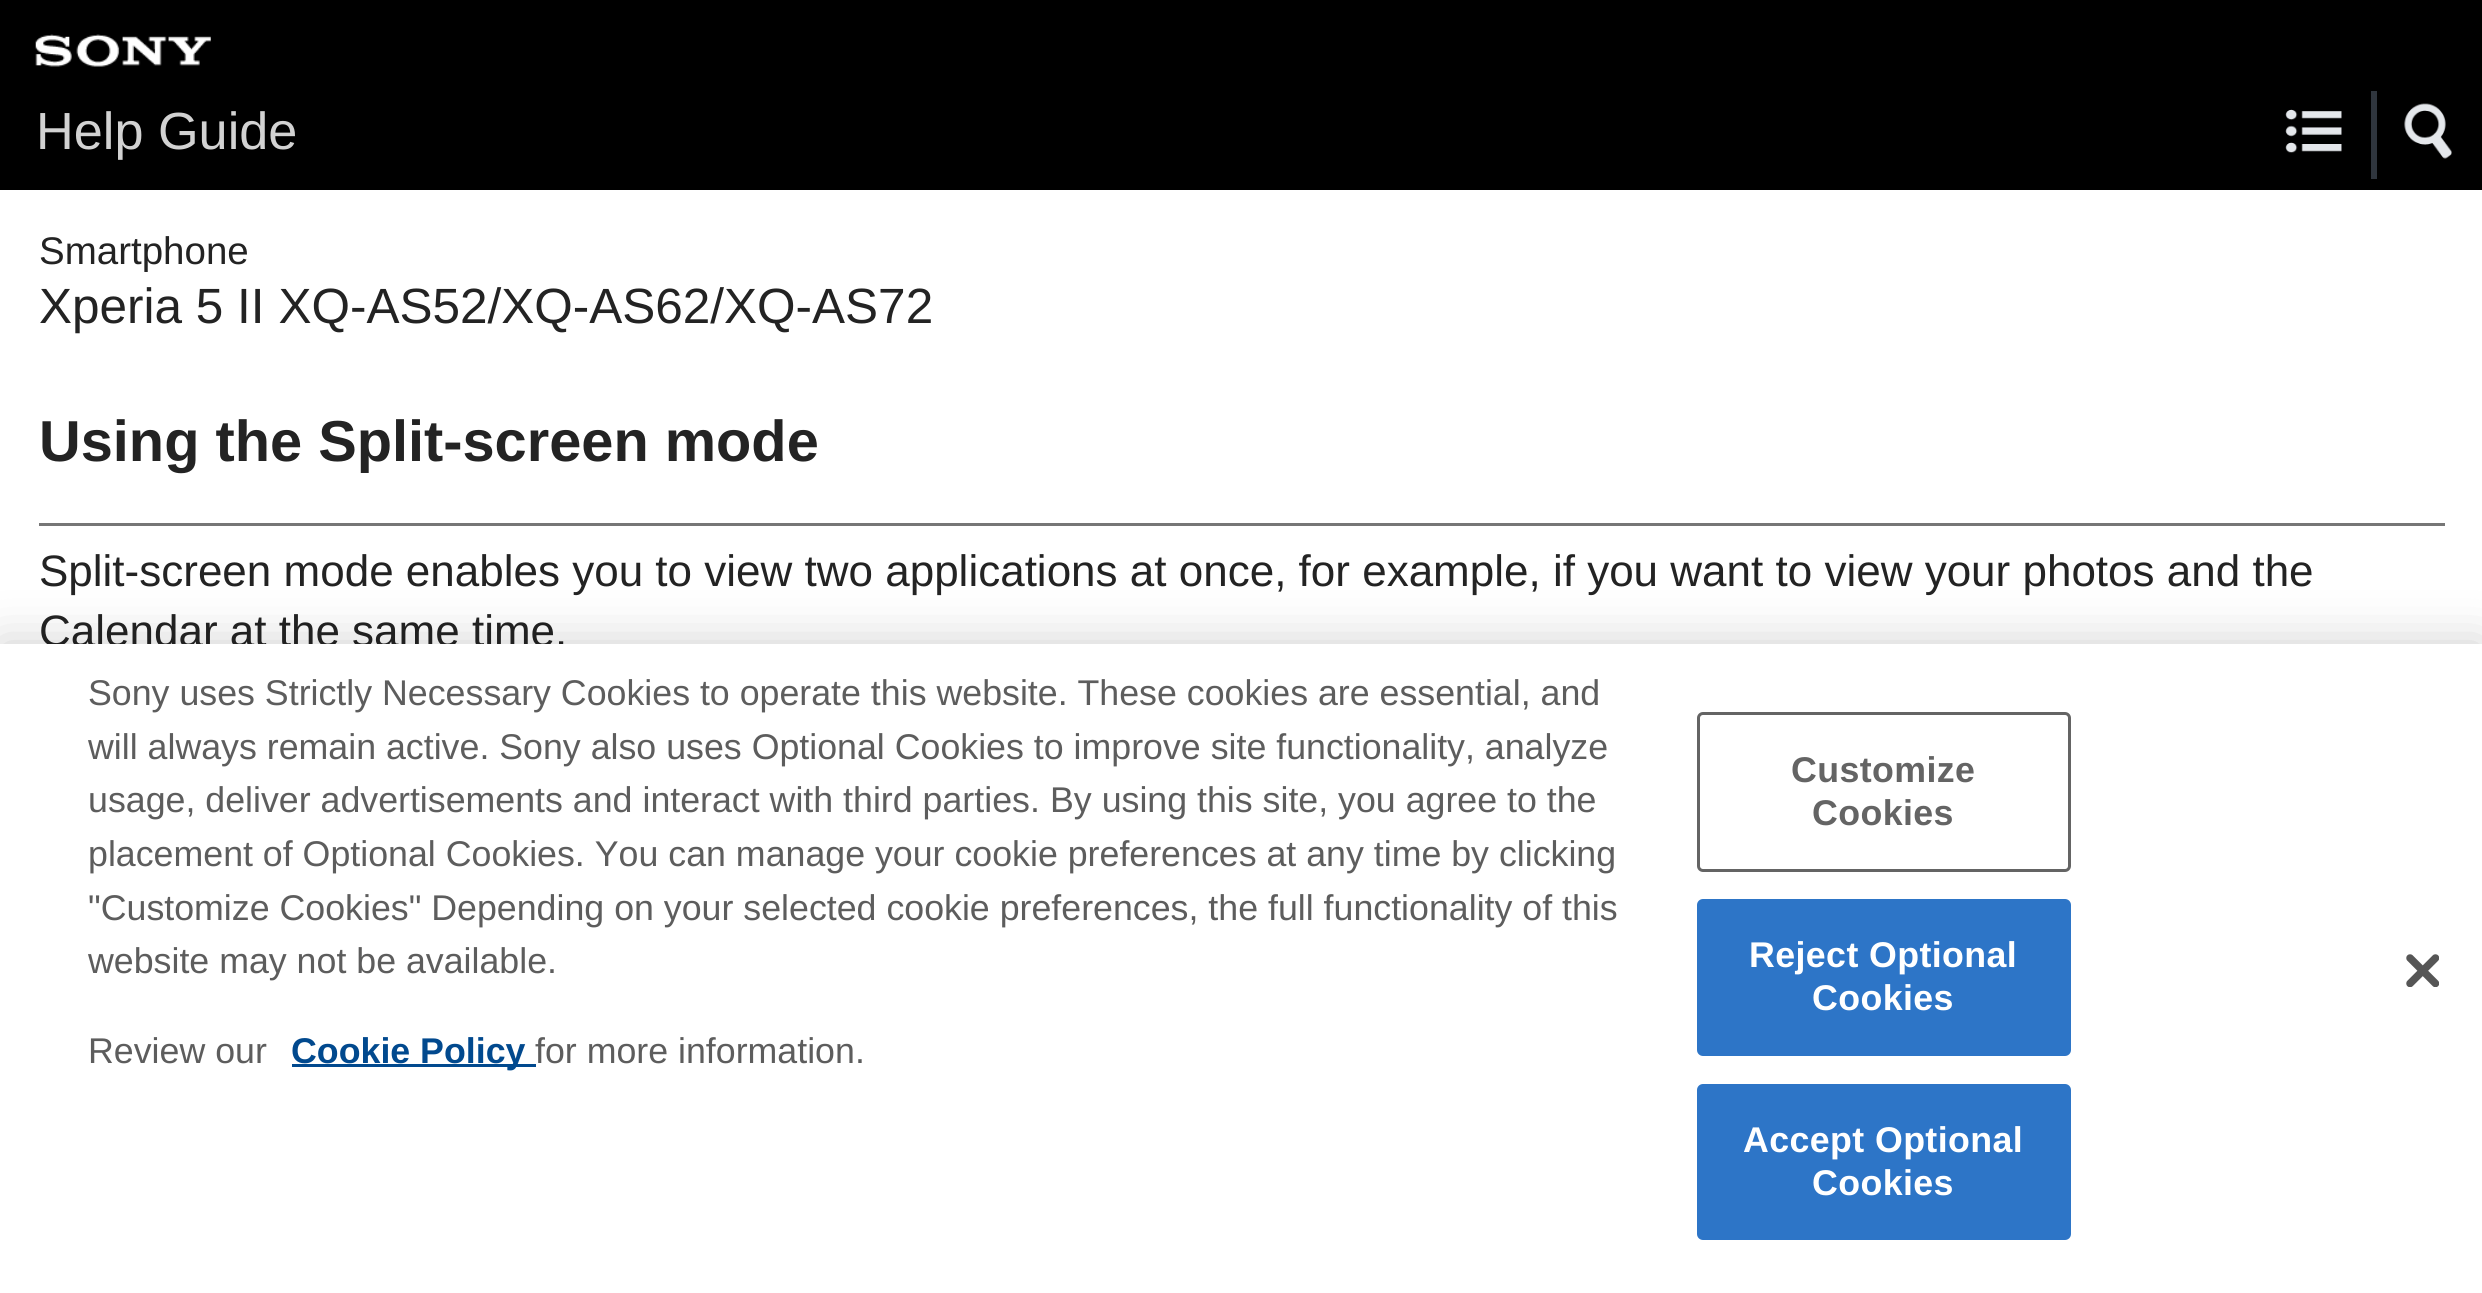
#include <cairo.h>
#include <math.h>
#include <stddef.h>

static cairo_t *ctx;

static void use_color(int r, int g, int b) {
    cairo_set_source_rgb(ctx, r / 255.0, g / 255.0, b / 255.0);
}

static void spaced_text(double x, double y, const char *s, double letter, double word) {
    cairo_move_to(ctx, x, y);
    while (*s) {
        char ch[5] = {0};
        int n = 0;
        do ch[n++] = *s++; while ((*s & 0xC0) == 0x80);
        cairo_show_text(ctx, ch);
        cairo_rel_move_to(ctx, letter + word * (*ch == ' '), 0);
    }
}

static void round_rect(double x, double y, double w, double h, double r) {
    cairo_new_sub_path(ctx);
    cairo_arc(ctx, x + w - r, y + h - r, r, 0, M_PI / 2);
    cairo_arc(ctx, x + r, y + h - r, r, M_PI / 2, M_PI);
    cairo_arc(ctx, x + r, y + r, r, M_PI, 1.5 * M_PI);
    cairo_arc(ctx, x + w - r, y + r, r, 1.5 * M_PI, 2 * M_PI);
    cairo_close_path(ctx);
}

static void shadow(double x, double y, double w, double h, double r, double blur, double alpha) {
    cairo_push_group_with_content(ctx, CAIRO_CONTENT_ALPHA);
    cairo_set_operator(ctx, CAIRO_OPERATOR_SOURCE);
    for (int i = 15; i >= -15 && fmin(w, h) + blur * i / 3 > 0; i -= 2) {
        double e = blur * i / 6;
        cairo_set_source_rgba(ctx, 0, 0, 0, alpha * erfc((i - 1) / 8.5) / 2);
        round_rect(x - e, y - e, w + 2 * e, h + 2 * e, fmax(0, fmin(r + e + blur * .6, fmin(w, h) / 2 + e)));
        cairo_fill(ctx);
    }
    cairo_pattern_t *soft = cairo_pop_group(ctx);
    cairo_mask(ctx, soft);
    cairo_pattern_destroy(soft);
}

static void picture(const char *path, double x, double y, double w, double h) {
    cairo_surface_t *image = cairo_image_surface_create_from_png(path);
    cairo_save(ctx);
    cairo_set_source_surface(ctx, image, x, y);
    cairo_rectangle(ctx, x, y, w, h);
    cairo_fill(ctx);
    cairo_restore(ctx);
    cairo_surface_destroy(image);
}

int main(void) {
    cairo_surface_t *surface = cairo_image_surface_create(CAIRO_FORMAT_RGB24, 2482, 1293);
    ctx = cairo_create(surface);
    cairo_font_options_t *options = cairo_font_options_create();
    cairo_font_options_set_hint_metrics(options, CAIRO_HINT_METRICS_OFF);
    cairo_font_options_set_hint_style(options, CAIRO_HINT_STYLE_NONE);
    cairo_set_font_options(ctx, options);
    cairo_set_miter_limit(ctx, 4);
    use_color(255, 255, 255);
    cairo_paint(ctx);
    use_color(0, 0, 0);
    cairo_rectangle(ctx, 0, 0, 2482, 190);
    cairo_fill(ctx);
    picture("img1.png", 35, 34, 176, 33);
    cairo_select_font_face(ctx, "Liberation Sans", CAIRO_FONT_SLANT_NORMAL, CAIRO_FONT_WEIGHT_NORMAL);
    cairo_set_font_size(ctx, 52.25);
    use_color(210, 210, 210);
    cairo_move_to(ctx, 36, 149);
    cairo_show_text(ctx, "Help Guide");
    cairo_set_font_size(ctx, 38.5);
    use_color(35, 35, 35);
    cairo_move_to(ctx, 39, 264);
    cairo_show_text(ctx, "Smartphone");
    cairo_set_font_size(ctx, 49.5);
    cairo_move_to(ctx, 39, 323);
    cairo_show_text(ctx, "Xperia 5 II XQ-AS52/XQ-AS62/XQ-AS72");
    use_color(47, 53, 61);
    cairo_rectangle(ctx, 2371, 91, 6, 88);
    cairo_fill(ctx);
    picture("img2.png", 2285, 109, 57, 44);
    picture("img3.png", 2404, 103, 48, 56);
    use_color(118, 118, 118);
    cairo_rectangle(ctx, 39, 523, 2406, 3);
    cairo_fill(ctx);
    cairo_select_font_face(ctx, "Liberation Sans", CAIRO_FONT_SLANT_NORMAL, CAIRO_FONT_WEIGHT_BOLD);
    cairo_set_font_size(ctx, 57.75);
    use_color(35, 35, 35);
    cairo_move_to(ctx, 39, 461);
    cairo_show_text(ctx, "Using the Split-screen mode");
    cairo_select_font_face(ctx, "Liberation Sans", CAIRO_FONT_SLANT_NORMAL, CAIRO_FONT_WEIGHT_NORMAL);
    cairo_set_font_size(ctx, 44);
    cairo_move_to(ctx, 39, 586);
    cairo_show_text(ctx, "Split-screen mode enables you to view two applications at once, for example, if you want to view your photos and the");
    cairo_move_to(ctx, 39, 646);
    cairo_show_text(ctx, "Calendar at the same time.");
    use_color(0, 0, 0);
    shadow(0, 644, 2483, 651, 0, 25, 0.2);
    use_color(255, 255, 255);
    cairo_rectangle(ctx, 0, 644, 2482, 649);
    cairo_fill(ctx);
    cairo_set_font_size(ctx, 35.75);
    use_color(93, 93, 93);
    cairo_move_to(ctx, 88, 705);
    cairo_show_text(ctx, "Sony uses Strictly Necessary Cookies to operate this website. These cookies are essential, and");
    cairo_move_to(ctx, 88, 759);
    cairo_show_text(ctx, "will always remain active. Sony also uses Optional Cookies to improve site functionality, analyze");
    cairo_move_to(ctx, 88, 812);
    cairo_show_text(ctx, "usage, deliver advertisements and interact with third parties.");
    cairo_move_to(ctx, 1050, 812);
    cairo_show_text(ctx, "By using this site, you agree to the");
    cairo_move_to(ctx, 88, 866);
    cairo_show_text(ctx, "placement of Optional Cookies. You can manage your cookie preferences at any time by clicking");
    cairo_move_to(ctx, 88, 920);
    cairo_show_text(ctx, "\"Customize Cookies\" Depending on your selected cookie preferences, the full functionality of this");
    cairo_move_to(ctx, 88, 973);
    cairo_show_text(ctx, "website may not be available.");
    cairo_move_to(ctx, 88, 1063);
    cairo_show_text(ctx, "Review our");
    use_color(1, 73, 142);
    cairo_rectangle(ctx, 292, 1064, 244, 3);
    cairo_fill(ctx);
    cairo_select_font_face(ctx, "Liberation Sans", CAIRO_FONT_SLANT_NORMAL, CAIRO_FONT_WEIGHT_BOLD);
    cairo_move_to(ctx, 291, 1063);
    cairo_show_text(ctx, "Cookie Policy");
    cairo_select_font_face(ctx, "Liberation Sans", CAIRO_FONT_SLANT_NORMAL, CAIRO_FONT_WEIGHT_NORMAL);
    use_color(93, 93, 93);
    cairo_move_to(ctx, 535, 1063);
    cairo_show_text(ctx, "for more information.");
    round_rect(1698.5, 713.5, 371, 157, 4.5);
    use_color(100, 100, 100);
    cairo_set_line_width(ctx, 3);
    cairo_stroke(ctx);
    cairo_select_font_face(ctx, "Liberation Sans", CAIRO_FONT_SLANT_NORMAL, CAIRO_FONT_WEIGHT_BOLD);
    spaced_text(1791, 782, "Customize", 0.4, 0);
    spaced_text(1812, 825, "Cookies", 0.4, 0);
    use_color(45, 117, 199);
    round_rect(1698.5, 900.5, 371, 154, 4.5);
    cairo_fill_preserve(ctx);
    cairo_stroke(ctx);
    use_color(255, 255, 255);
    spaced_text(1749, 967, "Reject Optional", 0.4, 0);
    spaced_text(1812, 1010, "Cookies", 0.4, 0);
    use_color(45, 117, 199);
    round_rect(1698.5, 1085.5, 371, 153, 4.5);
    cairo_fill_preserve(ctx);
    cairo_stroke(ctx);
    use_color(255, 255, 255);
    spaced_text(1743, 1152, "Accept Optional", 0.4, 0);
    spaced_text(1812, 1195, "Cookies", 0.4, 0);
    picture("img4.png", 2406, 954, 33, 33);
    cairo_surface_write_to_png(surface, "result.png");
    cairo_font_options_destroy(options);
    cairo_destroy(ctx);
    cairo_surface_destroy(surface);
    return 0;
}
